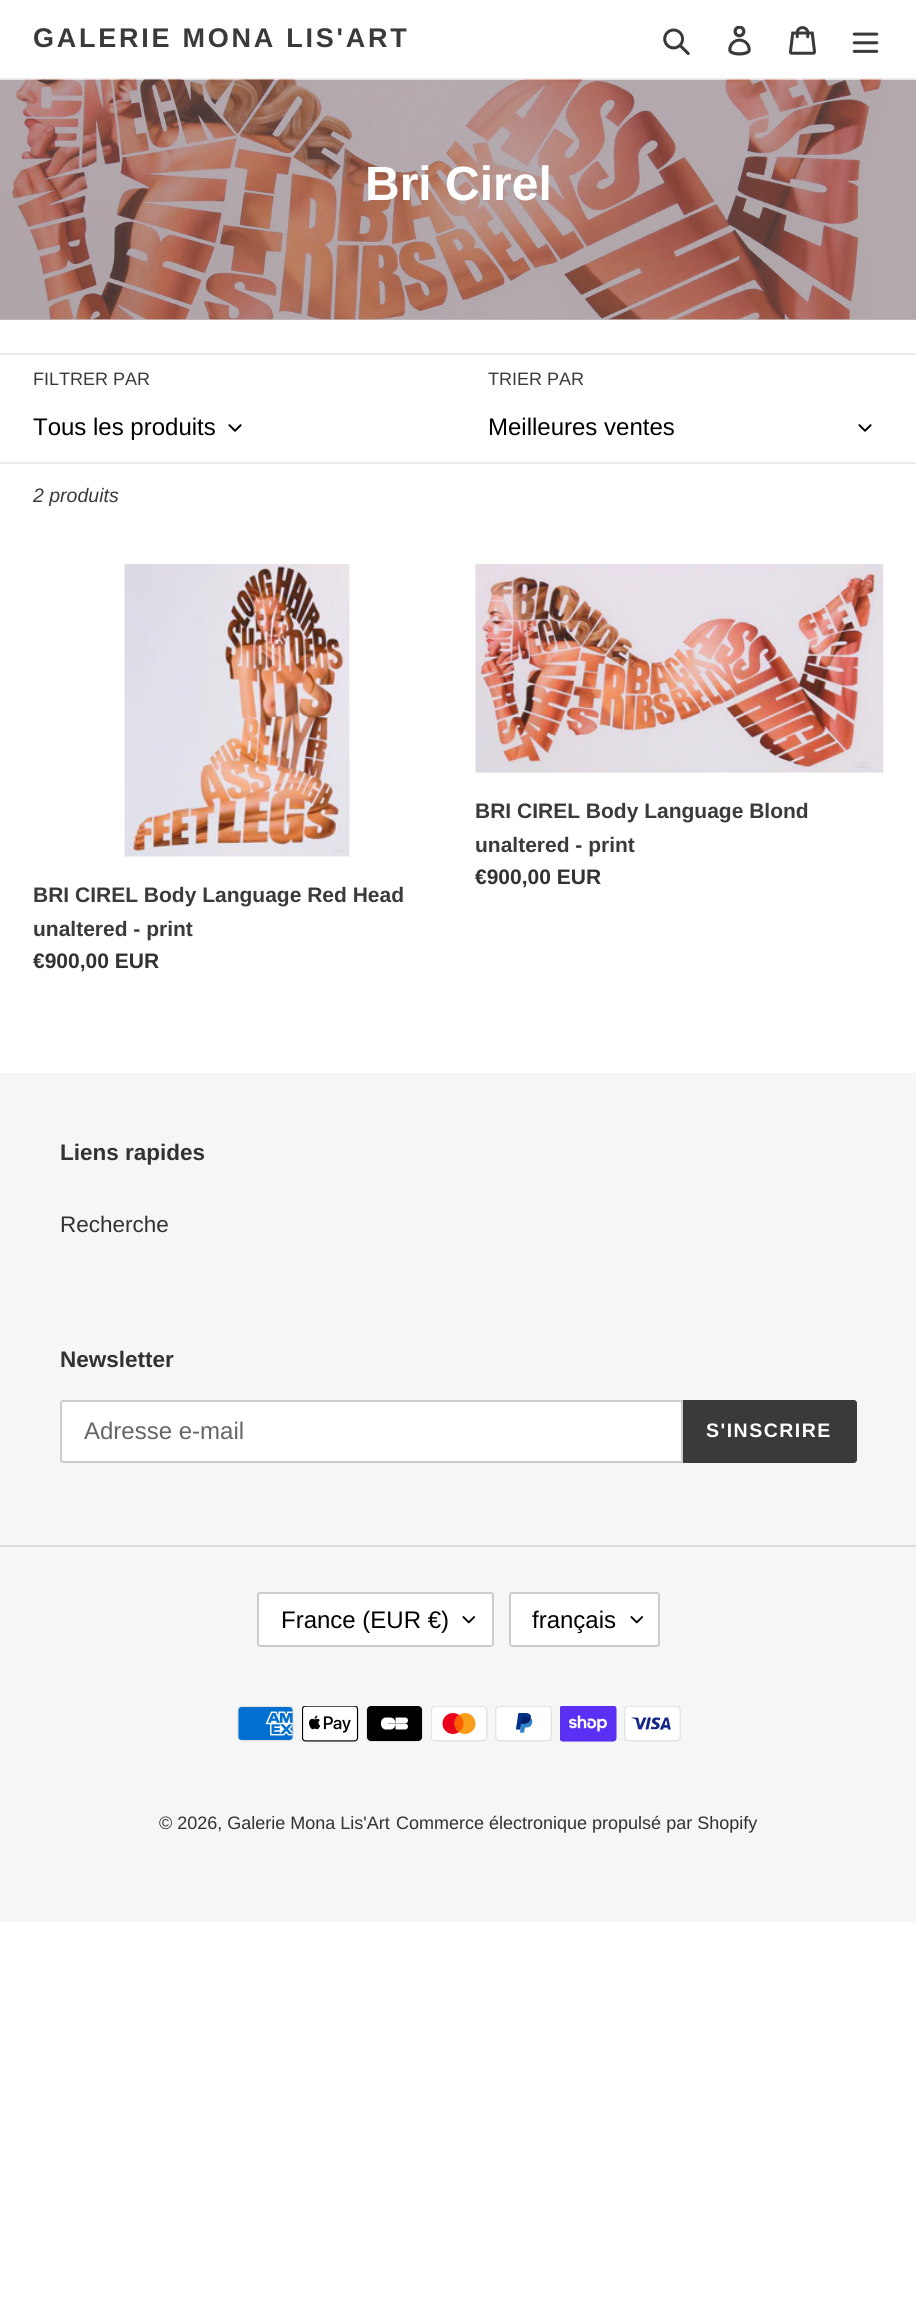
#include <cairo.h>
#include <math.h>
#include <stddef.h>

static cairo_t *ctx;

static void use_color(int r, int g, int b) {
    cairo_set_source_rgb(ctx, r / 255.0, g / 255.0, b / 255.0);
}

static void spaced_text(double x, double y, const char *s, double letter, double word) {
    cairo_move_to(ctx, x, y);
    while (*s) {
        char ch[5] = {0};
        int n = 0;
        do ch[n++] = *s++; while ((*s & 0xC0) == 0x80);
        cairo_show_text(ctx, ch);
        cairo_rel_move_to(ctx, letter + word * (*ch == ' '), 0);
    }
}

static void round_rect(double x, double y, double w, double h, double r) {
    cairo_new_sub_path(ctx);
    cairo_arc(ctx, x + w - r, y + h - r, r, 0, M_PI / 2);
    cairo_arc(ctx, x + r, y + h - r, r, M_PI / 2, M_PI);
    cairo_arc(ctx, x + r, y + r, r, M_PI, 1.5 * M_PI);
    cairo_arc(ctx, x + w - r, y + r, r, 1.5 * M_PI, 2 * M_PI);
    cairo_close_path(ctx);
}

static void picture(const char *path, double x, double y, double w, double h) {
    cairo_surface_t *image = cairo_image_surface_create_from_png(path);
    cairo_save(ctx);
    cairo_set_source_surface(ctx, image, x, y);
    cairo_rectangle(ctx, x, y, w, h);
    cairo_fill(ctx);
    cairo_restore(ctx);
    cairo_surface_destroy(image);
}

int main(void) {
    cairo_surface_t *surface = cairo_image_surface_create(CAIRO_FORMAT_RGB24, 916, 2297);
    ctx = cairo_create(surface);
    cairo_font_options_t *options = cairo_font_options_create();
    cairo_font_options_set_hint_metrics(options, CAIRO_HINT_METRICS_OFF);
    cairo_font_options_set_hint_style(options, CAIRO_HINT_STYLE_NONE);
    cairo_set_font_options(ctx, options);
    cairo_set_miter_limit(ctx, 4);
    use_color(255, 255, 255);
    cairo_paint(ctx);
    use_color(195, 188, 188);
    cairo_rectangle(ctx, 0, 319, 916, 1);
    cairo_fill(ctx);
    use_color(235, 235, 235);
    cairo_rectangle(ctx, 0, 78, 916, 2);
    cairo_fill(ctx);
    cairo_select_font_face(ctx, "Liberation Sans", CAIRO_FONT_SLANT_NORMAL, CAIRO_FONT_WEIGHT_BOLD);
    cairo_set_font_size(ctx, 27);
    use_color(58, 58, 58);
    spaced_text(33, 47, "GALERIE MONA LIS'ART", 2.75, 0);
    picture("img1.png", 663, 28, 27, 28);
    picture("img2.png", 728, 26, 23, 30);
    picture("img3.png", 789, 26, 27, 29);
    picture("img4.png", 852, 32, 27, 21);
    picture("img5.png", 0, 79, 916, 241);
    cairo_set_font_size(ctx, 48);
    use_color(255, 255, 255);
    cairo_move_to(ctx, 365, 200);
    cairo_show_text(ctx, "Bri Cirel");
    use_color(235, 235, 235);
    cairo_rectangle(ctx, 0, 353, 916, 2);
    cairo_fill(ctx);
    cairo_select_font_face(ctx, "Liberation Sans", CAIRO_FONT_SLANT_NORMAL, CAIRO_FONT_WEIGHT_NORMAL);
    cairo_set_font_size(ctx, 18);
    use_color(58, 58, 58);
    cairo_move_to(ctx, 33, 385);
    cairo_show_text(ctx, "FILTRER PAR");
    cairo_set_font_size(ctx, 24);
    use_color(0, 0, 0);
    cairo_move_to(ctx, 33, 435);
    cairo_show_text(ctx, "Tous les produits");
    picture("img6.png", 228, 424, 14, 8);
    cairo_set_font_size(ctx, 18);
    use_color(58, 58, 58);
    cairo_move_to(ctx, 488, 385);
    cairo_show_text(ctx, "TRIER PAR");
    cairo_set_font_size(ctx, 24);
    use_color(0, 0, 0);
    cairo_move_to(ctx, 488, 435);
    cairo_show_text(ctx, "Meilleures ventes");
    picture("img6.png", 858, 424, 14, 8);
    use_color(235, 235, 235);
    cairo_rectangle(ctx, 0, 462, 916, 2);
    cairo_fill(ctx);
    cairo_select_font_face(ctx, "Liberation Sans", CAIRO_FONT_SLANT_ITALIC, CAIRO_FONT_WEIGHT_NORMAL);
    cairo_set_font_size(ctx, 19.5);
    use_color(58, 58, 58);
    cairo_move_to(ctx, 33, 502);
    cairo_show_text(ctx, "2 produits");
    picture("img7.png", 475, 564, 409, 209);
    cairo_select_font_face(ctx, "Liberation Sans", CAIRO_FONT_SLANT_NORMAL, CAIRO_FONT_WEIGHT_BOLD);
    cairo_set_font_size(ctx, 21);
    cairo_move_to(ctx, 475, 818);
    cairo_show_text(ctx, "BRI CIREL Body Language Blond");
    cairo_move_to(ctx, 475, 852);
    cairo_show_text(ctx, "unaltered - print");
    use_color(51, 50, 50);
    cairo_move_to(ctx, 475, 884);
    cairo_show_text(ctx, "€900,00 EUR");
    picture("img8.png", 124, 564, 226, 293);
    use_color(58, 58, 58);
    cairo_move_to(ctx, 33, 902);
    cairo_show_text(ctx, "BRI CIREL Body Language Red Head");
    cairo_move_to(ctx, 33, 936);
    cairo_show_text(ctx, "unaltered - print");
    use_color(51, 50, 50);
    cairo_move_to(ctx, 33, 968);
    cairo_show_text(ctx, "€900,00 EUR");
    use_color(246, 246, 246);
    cairo_rectangle(ctx, 0, 1073, 916, 849);
    cairo_fill(ctx);
    cairo_set_font_size(ctx, 22.5);
    use_color(51, 50, 50);
    cairo_move_to(ctx, 60, 1160);
    cairo_show_text(ctx, "Liens rapides");
    cairo_select_font_face(ctx, "Liberation Sans", CAIRO_FONT_SLANT_NORMAL, CAIRO_FONT_WEIGHT_NORMAL);
    cairo_move_to(ctx, 60, 1232);
    cairo_show_text(ctx, "Recherche");
    cairo_select_font_face(ctx, "Liberation Sans", CAIRO_FONT_SLANT_NORMAL, CAIRO_FONT_WEIGHT_BOLD);
    cairo_move_to(ctx, 60, 1367);
    cairo_show_text(ctx, "Newsletter");
    use_color(255, 255, 255);
    cairo_new_path(ctx);
    cairo_move_to(ctx, 63, 1401);
    cairo_line_to(ctx, 682, 1401);
    cairo_line_to(ctx, 682, 1462);
    cairo_line_to(ctx, 63, 1462);
    cairo_curve_to(ctx, 62, 1462, 61, 1461, 61, 1460);
    cairo_line_to(ctx, 61, 1403);
    cairo_curve_to(ctx, 61, 1402, 62, 1401, 63, 1401);
    cairo_close_path(ctx);
    cairo_fill_preserve(ctx);
    use_color(204, 204, 204);
    cairo_stroke(ctx);
    cairo_select_font_face(ctx, "Liberation Sans", CAIRO_FONT_SLANT_NORMAL, CAIRO_FONT_WEIGHT_NORMAL);
    cairo_set_font_size(ctx, 24);
    use_color(102, 102, 102);
    cairo_move_to(ctx, 84, 1439);
    cairo_show_text(ctx, "Adresse e-mail");
    use_color(58, 58, 58);
    cairo_new_path(ctx);
    cairo_move_to(ctx, 683, 1400);
    cairo_line_to(ctx, 854, 1400);
    cairo_curve_to(ctx, 855.5, 1400, 857, 1401.5, 857, 1403);
    cairo_line_to(ctx, 857, 1460);
    cairo_curve_to(ctx, 857, 1461.5, 855.5, 1463, 854, 1463);
    cairo_line_to(ctx, 683, 1463);
    cairo_close_path(ctx);
    cairo_fill(ctx);
    cairo_select_font_face(ctx, "Liberation Sans", CAIRO_FONT_SLANT_NORMAL, CAIRO_FONT_WEIGHT_BOLD);
    cairo_set_font_size(ctx, 19.5);
    use_color(255, 255, 255);
    spaced_text(706, 1437, "S'INSCRIRE", 1.5, 0);
    use_color(221, 221, 221);
    cairo_rectangle(ctx, 0, 1545, 916, 2);
    cairo_fill(ctx);
    use_color(255, 255, 255);
    round_rect(257, 1592, 237, 55, 3);
    cairo_fill(ctx);
    picture("img9.png", 462, 1616, 13, 8);
    round_rect(258, 1593, 235, 53, 2);
    use_color(204, 204, 204);
    cairo_stroke(ctx);
    cairo_select_font_face(ctx, "Liberation Sans", CAIRO_FONT_SLANT_NORMAL, CAIRO_FONT_WEIGHT_NORMAL);
    cairo_set_font_size(ctx, 24);
    use_color(0, 0, 0);
    cairo_move_to(ctx, 281, 1628);
    cairo_show_text(ctx, "France (EUR €)");
    use_color(255, 255, 255);
    round_rect(509, 1592, 151, 55, 3);
    cairo_fill(ctx);
    picture("img9.png", 630, 1616, 13, 8);
    round_rect(510, 1593, 149, 53, 2);
    use_color(204, 204, 204);
    cairo_stroke(ctx);
    use_color(0, 0, 0);
    cairo_move_to(ctx, 532, 1628);
    cairo_show_text(ctx, "français");
    picture("img10.png", 237, 1706, 57, 36);
    picture("img11.png", 302, 1706, 57, 36);
    picture("img12.png", 366, 1706, 57, 36);
    picture("img13.png", 431, 1706, 57, 36);
    picture("img14.png", 495, 1706, 57, 36);
    picture("img15.png", 560, 1706, 57, 36);
    picture("img16.png", 624, 1706, 57, 36);
    cairo_set_font_size(ctx, 18);
    use_color(51, 50, 50);
    cairo_move_to(ctx, 159, 1829);
    cairo_show_text(ctx, "© 2026, Galerie Mona Lis'Art");
    cairo_move_to(ctx, 396, 1829);
    cairo_show_text(ctx, "Commerce électronique propulsé par Shopify");
    cairo_surface_write_to_png(surface, "result.png");
    cairo_font_options_destroy(options);
    cairo_destroy(ctx);
    cairo_surface_destroy(surface);
    return 0;
}
